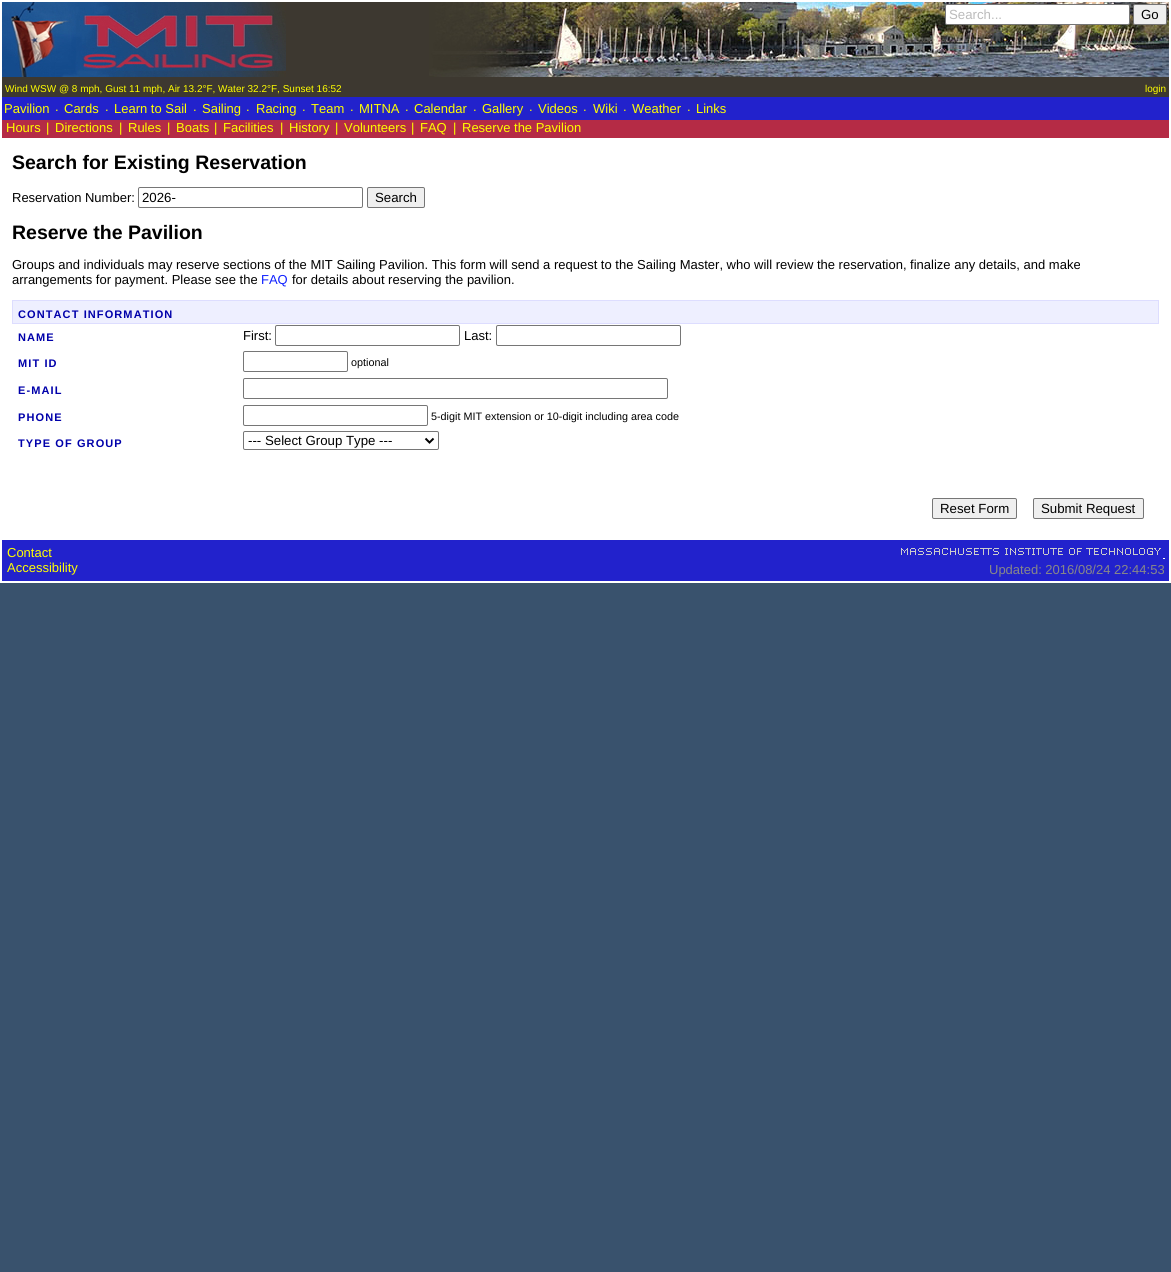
#include <cairo.h>
#include <math.h>
#include <stddef.h>

static cairo_t *ctx;

static void use_color(int r, int g, int b) {
    cairo_set_source_rgb(ctx, r / 255.0, g / 255.0, b / 255.0);
}

static void spaced_text(double x, double y, const char *s, double letter, double word) {
    cairo_move_to(ctx, x, y);
    while (*s) {
        char ch[5] = {0};
        int n = 0;
        do ch[n++] = *s++; while ((*s & 0xC0) == 0x80);
        cairo_show_text(ctx, ch);
        cairo_rel_move_to(ctx, letter + word * (*ch == ' '), 0);
    }
}

static void round_rect(double x, double y, double w, double h, double r) {
    cairo_new_sub_path(ctx);
    cairo_arc(ctx, x + w - r, y + h - r, r, 0, M_PI / 2);
    cairo_arc(ctx, x + r, y + h - r, r, M_PI / 2, M_PI);
    cairo_arc(ctx, x + r, y + r, r, M_PI, 1.5 * M_PI);
    cairo_arc(ctx, x + w - r, y + r, r, 1.5 * M_PI, 2 * M_PI);
    cairo_close_path(ctx);
}

static void picture(const char *path, double x, double y, double w, double h) {
    cairo_surface_t *image = cairo_image_surface_create_from_png(path);
    cairo_save(ctx);
    cairo_set_source_surface(ctx, image, x, y);
    cairo_rectangle(ctx, x, y, w, h);
    cairo_fill(ctx);
    cairo_restore(ctx);
    cairo_surface_destroy(image);
}

int main(void) {
    cairo_surface_t *surface = cairo_image_surface_create(CAIRO_FORMAT_RGB24, 1171, 1272);
    ctx = cairo_create(surface);
    cairo_font_options_t *options = cairo_font_options_create();
    cairo_font_options_set_hint_metrics(options, CAIRO_HINT_METRICS_OFF);
    cairo_font_options_set_hint_style(options, CAIRO_HINT_STYLE_NONE);
    cairo_set_font_options(ctx, options);
    cairo_set_miter_limit(ctx, 4);
    use_color(57, 82, 109);
    cairo_paint(ctx);
    use_color(255, 255, 255);
    cairo_rectangle(ctx, 0, 0, 1171, 583);
    cairo_fill(ctx);
    use_color(61, 56, 48);
    cairo_rectangle(ctx, 2, 2, 1167, 95);
    cairo_fill(ctx);
    picture("img1.png", 429, 2, 740, 75);
    picture("img2.png", 2, 2, 284, 75);
    use_color(255, 255, 255);
    round_rect(945.5, 4.5, 184, 20, 1.5);
    cairo_fill_preserve(ctx);
    use_color(118, 118, 118);
    cairo_set_line_width(ctx, 1);
    cairo_stroke(ctx);
    cairo_select_font_face(ctx, "Liberation Sans", CAIRO_FONT_SLANT_NORMAL, CAIRO_FONT_WEIGHT_NORMAL);
    cairo_set_font_size(ctx, 13.25);
    use_color(187, 187, 187);
    cairo_move_to(ctx, 949, 19);
    cairo_show_text(ctx, "Search...");
    use_color(239, 239, 239);
    round_rect(1133.5, 4.5, 33, 20, 1.5);
    cairo_fill_preserve(ctx);
    use_color(118, 118, 118);
    cairo_stroke(ctx);
    use_color(0, 0, 0);
    cairo_move_to(ctx, 1141, 19);
    cairo_show_text(ctx, "Go");
    cairo_set_font_size(ctx, 10);
    use_color(255, 255, 0);
    cairo_move_to(ctx, 5, 92);
    cairo_show_text(ctx, "Wind WSW @ 8 mph, Gust 11 mph, Air 13.2°F, Water 32.2°F, Sunset 16:52");
    cairo_move_to(ctx, 1145, 92);
    cairo_show_text(ctx, "login");
    use_color(34, 34, 204);
    cairo_rectangle(ctx, 2, 97, 1167, 23);
    cairo_fill(ctx);
    cairo_set_font_size(ctx, 13);
    use_color(255, 255, 0);
    cairo_move_to(ctx, 4, 113);
    cairo_show_text(ctx, "Pavilion");
    cairo_move_to(ctx, 55, 111);
    cairo_show_text(ctx, ".");
    cairo_move_to(ctx, 64, 113);
    cairo_show_text(ctx, "Cards");
    cairo_move_to(ctx, 105, 111);
    cairo_show_text(ctx, ".");
    cairo_move_to(ctx, 114, 113);
    cairo_show_text(ctx, "Learn to Sail");
    cairo_move_to(ctx, 193, 111);
    cairo_show_text(ctx, ".");
    cairo_move_to(ctx, 202, 113);
    cairo_show_text(ctx, "Sailing");
    cairo_move_to(ctx, 246, 111);
    cairo_show_text(ctx, ".");
    cairo_move_to(ctx, 256, 113);
    cairo_show_text(ctx, "Racing");
    cairo_move_to(ctx, 302, 111);
    cairo_show_text(ctx, ".");
    cairo_move_to(ctx, 311, 113);
    cairo_show_text(ctx, "Team");
    cairo_move_to(ctx, 350, 111);
    cairo_show_text(ctx, ".");
    cairo_move_to(ctx, 359, 113);
    cairo_show_text(ctx, "MITNA");
    cairo_move_to(ctx, 405, 111);
    cairo_show_text(ctx, ".");
    cairo_move_to(ctx, 414, 113);
    cairo_show_text(ctx, "Calendar");
    cairo_move_to(ctx, 473, 111);
    cairo_show_text(ctx, ".");
    cairo_move_to(ctx, 482, 113);
    cairo_show_text(ctx, "Gallery");
    cairo_move_to(ctx, 529, 111);
    cairo_show_text(ctx, ".");
    cairo_move_to(ctx, 538, 113);
    cairo_show_text(ctx, "Videos");
    cairo_move_to(ctx, 583, 111);
    cairo_show_text(ctx, ".");
    cairo_move_to(ctx, 593, 113);
    cairo_show_text(ctx, "Wiki");
    cairo_move_to(ctx, 623, 111);
    cairo_show_text(ctx, ".");
    cairo_move_to(ctx, 632, 113);
    cairo_show_text(ctx, "Weather");
    cairo_move_to(ctx, 687, 111);
    cairo_show_text(ctx, ".");
    cairo_move_to(ctx, 696, 113);
    cairo_show_text(ctx, "Links");
    use_color(181, 43, 69);
    cairo_rectangle(ctx, 2, 120, 1167, 18);
    cairo_fill(ctx);
    use_color(255, 255, 0);
    cairo_move_to(ctx, 6, 132);
    cairo_show_text(ctx, "Hours");
    cairo_move_to(ctx, 46, 132);
    cairo_show_text(ctx, "|");
    cairo_move_to(ctx, 55, 132);
    cairo_show_text(ctx, "Directions");
    cairo_move_to(ctx, 119, 132);
    cairo_show_text(ctx, "|");
    cairo_move_to(ctx, 128, 132);
    cairo_show_text(ctx, "Rules");
    cairo_move_to(ctx, 167, 132);
    cairo_show_text(ctx, "|");
    cairo_move_to(ctx, 176, 132);
    cairo_show_text(ctx, "Boats");
    cairo_move_to(ctx, 214, 132);
    cairo_show_text(ctx, "|");
    cairo_move_to(ctx, 223, 132);
    cairo_show_text(ctx, "Facilities");
    cairo_move_to(ctx, 280, 132);
    cairo_show_text(ctx, "|");
    cairo_move_to(ctx, 289, 132);
    cairo_show_text(ctx, "History");
    cairo_move_to(ctx, 335, 132);
    cairo_show_text(ctx, "|");
    cairo_move_to(ctx, 344, 132);
    cairo_show_text(ctx, "Volunteers");
    cairo_move_to(ctx, 411, 132);
    cairo_show_text(ctx, "|");
    cairo_move_to(ctx, 420, 132);
    cairo_show_text(ctx, "FAQ");
    cairo_move_to(ctx, 453, 132);
    cairo_show_text(ctx, "|");
    cairo_move_to(ctx, 462, 132);
    cairo_show_text(ctx, "Reserve the Pavilion");
    cairo_select_font_face(ctx, "Liberation Sans", CAIRO_FONT_SLANT_NORMAL, CAIRO_FONT_WEIGHT_BOLD);
    cairo_set_font_size(ctx, 19.5);
    use_color(0, 0, 0);
    cairo_move_to(ctx, 12, 169);
    cairo_show_text(ctx, "Search for Existing Reservation");
    cairo_select_font_face(ctx, "Liberation Sans", CAIRO_FONT_SLANT_NORMAL, CAIRO_FONT_WEIGHT_NORMAL);
    cairo_set_font_size(ctx, 13);
    cairo_move_to(ctx, 12, 202);
    cairo_show_text(ctx, "Reservation Number:");
    round_rect(138.5, 187.5, 224, 20, 1.5);
    use_color(118, 118, 118);
    cairo_stroke(ctx);
    cairo_set_font_size(ctx, 13.25);
    use_color(0, 0, 0);
    cairo_move_to(ctx, 142, 202);
    cairo_show_text(ctx, "2026-");
    use_color(239, 239, 239);
    round_rect(367.5, 187.5, 57, 20, 1.5);
    cairo_fill_preserve(ctx);
    use_color(118, 118, 118);
    cairo_stroke(ctx);
    use_color(0, 0, 0);
    cairo_move_to(ctx, 375, 202);
    cairo_show_text(ctx, "Search");
    cairo_select_font_face(ctx, "Liberation Sans", CAIRO_FONT_SLANT_NORMAL, CAIRO_FONT_WEIGHT_BOLD);
    cairo_set_font_size(ctx, 19.5);
    cairo_move_to(ctx, 12, 239);
    cairo_show_text(ctx, "Reserve the Pavilion");
    cairo_select_font_face(ctx, "Liberation Sans", CAIRO_FONT_SLANT_NORMAL, CAIRO_FONT_WEIGHT_NORMAL);
    cairo_set_font_size(ctx, 13);
    cairo_move_to(ctx, 12, 269);
    cairo_show_text(ctx, "Groups and individuals may reserve sections of the MIT Sailing Pavilion. This form will send a request to the Sailing Master, who will review the reservation, finalize any details, and make");
    cairo_move_to(ctx, 12, 284);
    cairo_show_text(ctx, "arrangements for payment. Please see the");
    use_color(17, 34, 255);
    cairo_move_to(ctx, 261, 284);
    cairo_show_text(ctx, "FAQ");
    use_color(0, 0, 0);
    cairo_move_to(ctx, 292, 284);
    cairo_show_text(ctx, "for details about reserving the pavilion.");
    use_color(238, 239, 255);
    cairo_rectangle(ctx, 13, 301, 1145, 22);
    cairo_fill(ctx);
    use_color(221, 221, 255);
    cairo_rectangle(ctx, 12, 300, 1147, 1);
    cairo_fill(ctx);
    cairo_rectangle(ctx, 1158, 300, 1, 24);
    cairo_fill(ctx);
    cairo_rectangle(ctx, 12, 323, 1147, 1);
    cairo_fill(ctx);
    cairo_rectangle(ctx, 12, 300, 1, 24);
    cairo_fill(ctx);
    cairo_select_font_face(ctx, "Liberation Sans", CAIRO_FONT_SLANT_NORMAL, CAIRO_FONT_WEIGHT_BOLD);
    cairo_set_font_size(ctx, 11);
    use_color(0, 0, 170);
    spaced_text(18, 318, "CONTACT INFORMATION", 1.1, 0);
    spaced_text(18, 341, "NAME", 1.1, 0);
    cairo_select_font_face(ctx, "Liberation Sans", CAIRO_FONT_SLANT_NORMAL, CAIRO_FONT_WEIGHT_NORMAL);
    cairo_set_font_size(ctx, 13);
    use_color(0, 0, 0);
    cairo_move_to(ctx, 243, 340);
    cairo_show_text(ctx, "First:");
    round_rect(275.5, 325.5, 184, 20, 1.5);
    use_color(118, 118, 118);
    cairo_stroke(ctx);
    use_color(0, 0, 0);
    cairo_move_to(ctx, 464, 340);
    cairo_show_text(ctx, "Last:");
    round_rect(496.5, 325.5, 184, 20, 1.5);
    use_color(118, 118, 118);
    cairo_stroke(ctx);
    cairo_select_font_face(ctx, "Liberation Sans", CAIRO_FONT_SLANT_NORMAL, CAIRO_FONT_WEIGHT_BOLD);
    cairo_set_font_size(ctx, 11);
    use_color(0, 0, 170);
    spaced_text(18, 367, "MIT ID", 1.1, 0);
    round_rect(243.5, 351.5, 104, 20, 1.5);
    use_color(118, 118, 118);
    cairo_stroke(ctx);
    cairo_select_font_face(ctx, "Liberation Sans", CAIRO_FONT_SLANT_NORMAL, CAIRO_FONT_WEIGHT_NORMAL);
    cairo_set_font_size(ctx, 10.8);
    use_color(0, 0, 0);
    cairo_move_to(ctx, 351, 366);
    cairo_show_text(ctx, "optional");
    cairo_select_font_face(ctx, "Liberation Sans", CAIRO_FONT_SLANT_NORMAL, CAIRO_FONT_WEIGHT_BOLD);
    cairo_set_font_size(ctx, 11);
    use_color(0, 0, 170);
    spaced_text(18, 394, "E-MAIL", 1.1, 0);
    round_rect(243.5, 378.5, 424, 20, 1.5);
    use_color(118, 118, 118);
    cairo_stroke(ctx);
    use_color(0, 0, 170);
    spaced_text(18, 421, "PHONE", 1.1, 0);
    round_rect(243.5, 405.5, 184, 20, 1.5);
    use_color(118, 118, 118);
    cairo_stroke(ctx);
    cairo_select_font_face(ctx, "Liberation Sans", CAIRO_FONT_SLANT_NORMAL, CAIRO_FONT_WEIGHT_NORMAL);
    cairo_set_font_size(ctx, 10.8);
    use_color(0, 0, 0);
    cairo_move_to(ctx, 431, 420);
    cairo_show_text(ctx, "5-digit MIT extension or 10-digit including area code");
    cairo_select_font_face(ctx, "Liberation Sans", CAIRO_FONT_SLANT_NORMAL, CAIRO_FONT_WEIGHT_BOLD);
    cairo_set_font_size(ctx, 11);
    use_color(0, 0, 170);
    spaced_text(18, 447, "TYPE OF GROUP", 1.1, 0);
    round_rect(243.5, 431.5, 195, 18, 1.5);
    use_color(118, 118, 118);
    cairo_stroke(ctx);
    cairo_new_path(ctx);
    cairo_move_to(ctx, 425.5, 438.5);
    cairo_line_to(ctx, 429.5, 442.5);
    cairo_line_to(ctx, 433.5, 438.5);
    use_color(0, 0, 0);
    cairo_set_line_width(ctx, 2);
    cairo_stroke(ctx);
    cairo_select_font_face(ctx, "Liberation Sans", CAIRO_FONT_SLANT_NORMAL, CAIRO_FONT_WEIGHT_NORMAL);
    cairo_set_font_size(ctx, 13.25);
    cairo_move_to(ctx, 248, 445);
    cairo_show_text(ctx, "--- Select Group Type ---");
    use_color(239, 239, 239);
    round_rect(932.5, 498.5, 84, 20, 1.5);
    cairo_fill_preserve(ctx);
    use_color(118, 118, 118);
    cairo_set_line_width(ctx, 1);
    cairo_stroke(ctx);
    use_color(0, 0, 0);
    cairo_move_to(ctx, 940, 513);
    cairo_show_text(ctx, "Reset Form");
    use_color(239, 239, 239);
    round_rect(1033.5, 498.5, 110, 20, 1.5);
    cairo_fill_preserve(ctx);
    use_color(118, 118, 118);
    cairo_stroke(ctx);
    use_color(0, 0, 0);
    cairo_move_to(ctx, 1041, 513);
    cairo_show_text(ctx, "Submit Request");
    use_color(34, 34, 204);
    cairo_rectangle(ctx, 2, 540, 1167, 41);
    cairo_fill(ctx);
    cairo_set_font_size(ctx, 13);
    use_color(255, 255, 0);
    cairo_move_to(ctx, 7, 557);
    cairo_show_text(ctx, "Contact");
    cairo_move_to(ctx, 7, 572);
    cairo_show_text(ctx, "Accessibility");
    picture("img3.png", 901, 548, 264, 11);
    use_color(136, 136, 136);
    cairo_move_to(ctx, 989, 574);
    cairo_show_text(ctx, "Updated: 2016/08/24 22:44:53");
    cairo_surface_write_to_png(surface, "result.png");
    cairo_font_options_destroy(options);
    cairo_destroy(ctx);
    cairo_surface_destroy(surface);
    return 0;
}
